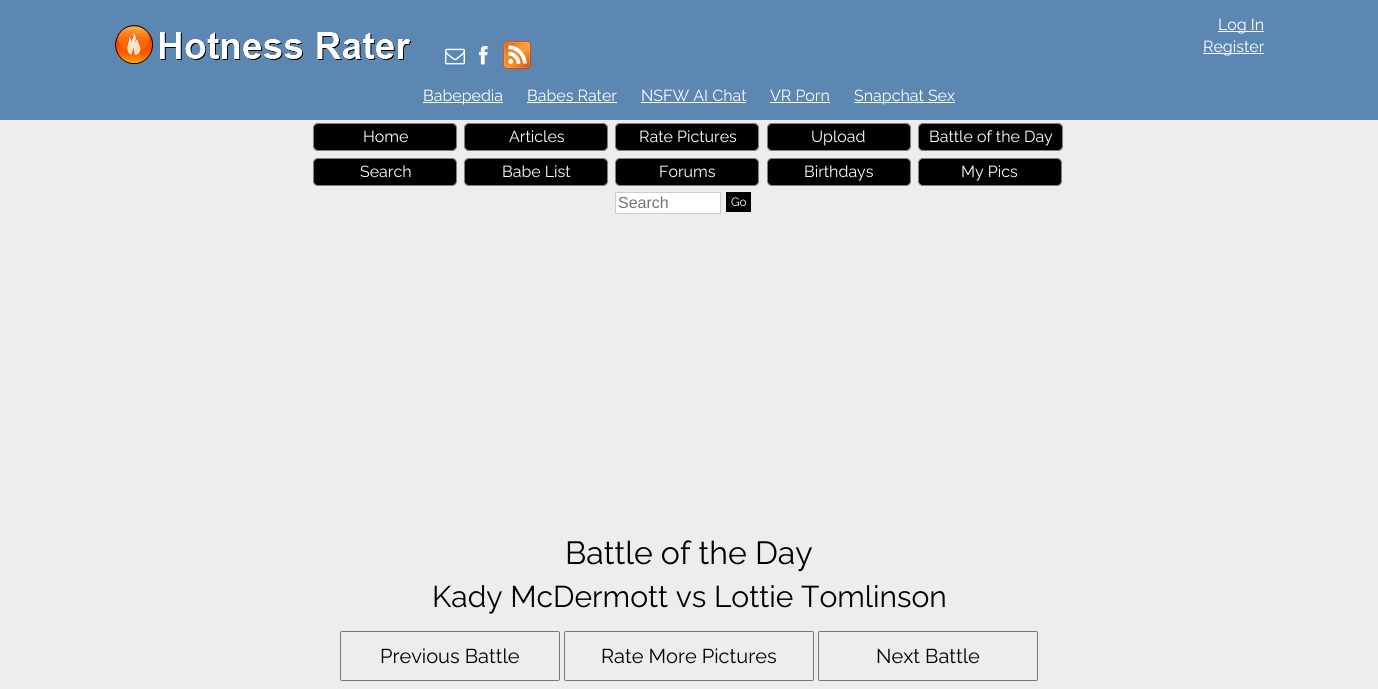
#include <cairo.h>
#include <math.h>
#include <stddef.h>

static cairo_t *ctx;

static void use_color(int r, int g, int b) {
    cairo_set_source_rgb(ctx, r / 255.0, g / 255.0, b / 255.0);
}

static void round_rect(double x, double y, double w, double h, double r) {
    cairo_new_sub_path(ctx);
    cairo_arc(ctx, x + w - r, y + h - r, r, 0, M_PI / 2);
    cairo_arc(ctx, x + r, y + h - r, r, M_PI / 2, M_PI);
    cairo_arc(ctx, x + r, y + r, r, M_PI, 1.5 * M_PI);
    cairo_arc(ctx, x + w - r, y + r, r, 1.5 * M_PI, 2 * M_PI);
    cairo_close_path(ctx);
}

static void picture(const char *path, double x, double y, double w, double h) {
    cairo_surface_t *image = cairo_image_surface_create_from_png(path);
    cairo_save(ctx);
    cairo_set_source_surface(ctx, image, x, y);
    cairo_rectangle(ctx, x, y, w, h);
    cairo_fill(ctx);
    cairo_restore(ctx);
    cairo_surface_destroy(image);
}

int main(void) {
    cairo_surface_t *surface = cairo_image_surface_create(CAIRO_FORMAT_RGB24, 1378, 689);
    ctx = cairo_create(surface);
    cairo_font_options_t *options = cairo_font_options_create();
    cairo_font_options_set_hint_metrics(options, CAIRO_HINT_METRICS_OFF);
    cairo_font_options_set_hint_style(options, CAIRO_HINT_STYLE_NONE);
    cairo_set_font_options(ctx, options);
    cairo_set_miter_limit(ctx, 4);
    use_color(237, 237, 237);
    cairo_paint(ctx);
    use_color(92, 135, 178);
    cairo_rectangle(ctx, 0, 0, 1378, 120);
    cairo_fill(ctx);
    picture("img1.png", 115, 25, 296, 39);
    picture("img2.png", 445, 48, 20, 17);
    picture("img3.png", 479, 46, 9, 19);
    picture("img4.png", 503, 41, 28, 28);
    use_color(255, 255, 255);
    cairo_rectangle(ctx, 1218, 31, 46, 1);
    cairo_fill(ctx);
    cairo_select_font_face(ctx, "Raleway Thin", CAIRO_FONT_SLANT_NORMAL, CAIRO_FONT_WEIGHT_NORMAL);
    cairo_set_font_size(ctx, 16);
    cairo_move_to(ctx, 1218, 30);
    cairo_show_text(ctx, "Log In");
    cairo_rectangle(ctx, 1203, 53, 61, 1);
    cairo_fill(ctx);
    cairo_move_to(ctx, 1203, 52);
    cairo_show_text(ctx, "Register");
    cairo_rectangle(ctx, 423, 102, 80, 1);
    cairo_fill(ctx);
    cairo_move_to(ctx, 423, 101);
    cairo_show_text(ctx, "Babepedia");
    cairo_move_to(ctx, 527, 101);
    cairo_show_text(ctx, "Babes Rater");
    cairo_rectangle(ctx, 527, 102, 90, 1);
    cairo_fill(ctx);
    cairo_move_to(ctx, 641, 101);
    cairo_show_text(ctx, "NSFW AI Chat");
    cairo_rectangle(ctx, 641, 102, 105, 1);
    cairo_fill(ctx);
    cairo_move_to(ctx, 770, 101);
    cairo_show_text(ctx, "VR Porn");
    cairo_rectangle(ctx, 770, 102, 60, 1);
    cairo_fill(ctx);
    cairo_rectangle(ctx, 854, 102, 101, 1);
    cairo_fill(ctx);
    cairo_move_to(ctx, 854, 101);
    cairo_show_text(ctx, "Snapchat Sex");
    use_color(0, 0, 0);
    round_rect(313.5, 123.5, 143, 27, 4.5);
    cairo_fill_preserve(ctx);
    use_color(128, 128, 128);
    cairo_set_line_width(ctx, 1);
    cairo_stroke(ctx);
    use_color(255, 255, 255);
    cairo_move_to(ctx, 363, 142);
    cairo_show_text(ctx, "Home");
    use_color(0, 0, 0);
    round_rect(464.5, 123.5, 143, 27, 4.5);
    cairo_fill_preserve(ctx);
    use_color(128, 128, 128);
    cairo_stroke(ctx);
    use_color(255, 255, 255);
    cairo_move_to(ctx, 509, 142);
    cairo_show_text(ctx, "Articles");
    use_color(0, 0, 0);
    round_rect(615.5, 123.5, 143, 27, 4.5);
    cairo_fill_preserve(ctx);
    use_color(128, 128, 128);
    cairo_stroke(ctx);
    use_color(255, 255, 255);
    cairo_move_to(ctx, 639, 142);
    cairo_show_text(ctx, "Rate Pictures");
    use_color(0, 0, 0);
    round_rect(767.5, 123.5, 143, 27, 4.5);
    cairo_fill_preserve(ctx);
    use_color(128, 128, 128);
    cairo_stroke(ctx);
    use_color(255, 255, 255);
    cairo_move_to(ctx, 811, 142);
    cairo_show_text(ctx, "Upload");
    use_color(0, 0, 0);
    round_rect(918.5, 123.5, 144, 27, 4.5);
    cairo_fill_preserve(ctx);
    use_color(128, 128, 128);
    cairo_stroke(ctx);
    use_color(255, 255, 255);
    cairo_move_to(ctx, 929, 142);
    cairo_show_text(ctx, "Battle of the Day");
    use_color(0, 0, 0);
    round_rect(313.5, 158.5, 143, 27, 4.5);
    cairo_fill_preserve(ctx);
    use_color(128, 128, 128);
    cairo_stroke(ctx);
    use_color(255, 255, 255);
    cairo_move_to(ctx, 360, 177);
    cairo_show_text(ctx, "Search");
    use_color(0, 0, 0);
    round_rect(464.5, 158.5, 143, 27, 4.5);
    cairo_fill_preserve(ctx);
    use_color(128, 128, 128);
    cairo_stroke(ctx);
    use_color(255, 255, 255);
    cairo_move_to(ctx, 502, 177);
    cairo_show_text(ctx, "Babe List");
    use_color(0, 0, 0);
    round_rect(615.5, 158.5, 143, 27, 4.5);
    cairo_fill_preserve(ctx);
    use_color(128, 128, 128);
    cairo_stroke(ctx);
    use_color(255, 255, 255);
    cairo_move_to(ctx, 659, 177);
    cairo_show_text(ctx, "Forums");
    use_color(0, 0, 0);
    round_rect(767.5, 158.5, 143, 27, 4.5);
    cairo_fill_preserve(ctx);
    use_color(128, 128, 128);
    cairo_stroke(ctx);
    use_color(255, 255, 255);
    cairo_move_to(ctx, 804, 177);
    cairo_show_text(ctx, "Birthdays");
    use_color(0, 0, 0);
    round_rect(918.5, 158.5, 143, 27, 4.5);
    cairo_fill_preserve(ctx);
    use_color(128, 128, 128);
    cairo_stroke(ctx);
    use_color(255, 255, 255);
    cairo_move_to(ctx, 961, 177);
    cairo_show_text(ctx, "My Pics");
    cairo_rectangle(ctx, 615.5, 192.5, 105, 21);
    cairo_fill_preserve(ctx);
    use_color(204, 204, 204);
    cairo_stroke(ctx);
    cairo_select_font_face(ctx, "Liberation Sans", CAIRO_FONT_SLANT_NORMAL, CAIRO_FONT_WEIGHT_NORMAL);
    use_color(117, 117, 117);
    cairo_move_to(ctx, 618, 208);
    cairo_show_text(ctx, "Search");
    use_color(0, 0, 0);
    cairo_rectangle(ctx, 726, 192, 25, 20);
    cairo_fill(ctx);
    cairo_select_font_face(ctx, "Raleway Thin", CAIRO_FONT_SLANT_NORMAL, CAIRO_FONT_WEIGHT_NORMAL);
    cairo_set_font_size(ctx, 12);
    use_color(255, 255, 255);
    cairo_move_to(ctx, 731, 206);
    cairo_show_text(ctx, "Go");
    cairo_set_font_size(ctx, 32);
    use_color(0, 0, 0);
    cairo_move_to(ctx, 565, 564);
    cairo_show_text(ctx, "Battle of the Day");
    cairo_set_font_size(ctx, 30);
    cairo_move_to(ctx, 432, 607);
    cairo_show_text(ctx, "Kady McDermott vs Lottie Tomlinson");
    round_rect(340.5, 631.5, 219, 49, 1.5);
    use_color(118, 118, 118);
    cairo_stroke(ctx);
    cairo_set_font_size(ctx, 20);
    use_color(0, 0, 0);
    cairo_move_to(ctx, 380, 663);
    cairo_show_text(ctx, "Previous Battle");
    round_rect(564.5, 631.5, 249, 49, 1.5);
    use_color(118, 118, 118);
    cairo_stroke(ctx);
    use_color(0, 0, 0);
    cairo_move_to(ctx, 601, 663);
    cairo_show_text(ctx, "Rate More Pictures");
    round_rect(818.5, 631.5, 219, 49, 1.5);
    use_color(118, 118, 118);
    cairo_stroke(ctx);
    use_color(0, 0, 0);
    cairo_move_to(ctx, 876, 663);
    cairo_show_text(ctx, "Next Battle");
    cairo_surface_write_to_png(surface, "result.png");
    cairo_font_options_destroy(options);
    cairo_destroy(ctx);
    cairo_surface_destroy(surface);
    return 0;
}
